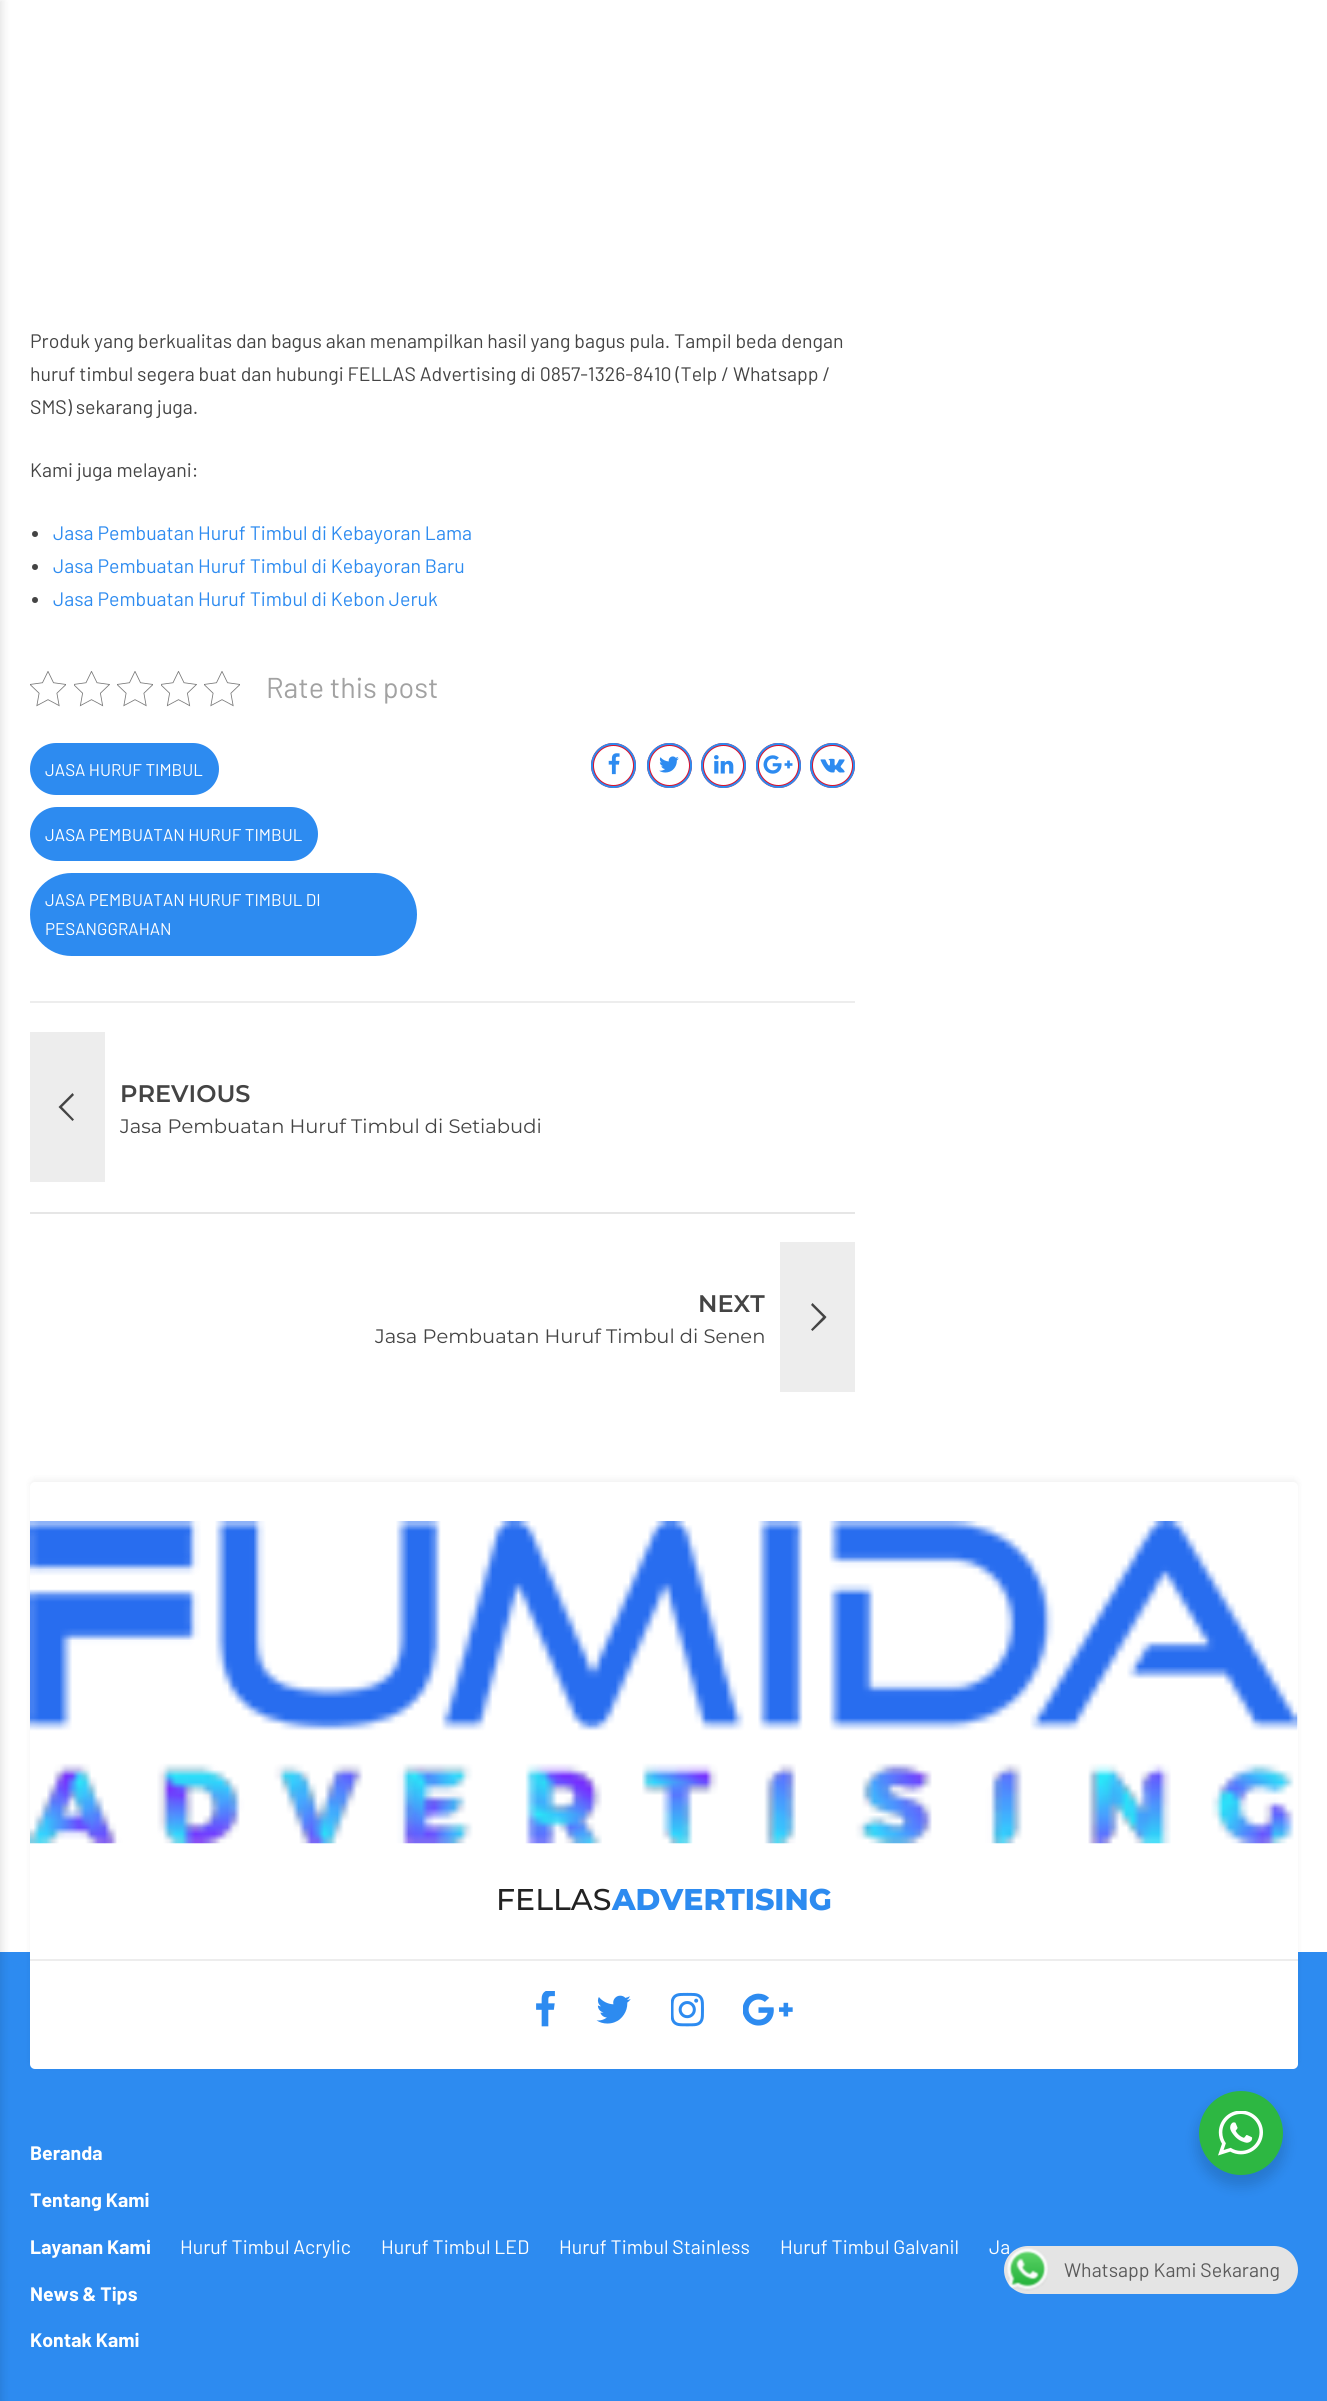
#include <cairo.h>
#include <math.h>
#include <stddef.h>

static cairo_t *ctx;

static void use_color(int r, int g, int b) {
    cairo_set_source_rgb(ctx, r / 255.0, g / 255.0, b / 255.0);
}

static void round_rect(double x, double y, double w, double h, double r) {
    cairo_new_sub_path(ctx);
    cairo_arc(ctx, x + w - r, y + h - r, r, 0, M_PI / 2);
    cairo_arc(ctx, x + r, y + h - r, r, M_PI / 2, M_PI);
    cairo_arc(ctx, x + r, y + r, r, M_PI, 1.5 * M_PI);
    cairo_arc(ctx, x + w - r, y + r, r, 1.5 * M_PI, 2 * M_PI);
    cairo_close_path(ctx);
}

static void shadow(double x, double y, double w, double h, double r, double blur, double alpha) {
    cairo_push_group_with_content(ctx, CAIRO_CONTENT_ALPHA);
    cairo_set_operator(ctx, CAIRO_OPERATOR_SOURCE);
    for (int i = 15; i >= -15 && fmin(w, h) + blur * i / 3 > 0; i -= 2) {
        double e = blur * i / 6;
        cairo_set_source_rgba(ctx, 0, 0, 0, alpha * erfc((i - 1) / 8.5) / 2);
        round_rect(x - e, y - e, w + 2 * e, h + 2 * e, fmax(0, fmin(r + e + blur * .6, fmin(w, h) / 2 + e)));
        cairo_fill(ctx);
    }
    cairo_pattern_t *soft = cairo_pop_group(ctx);
    cairo_mask(ctx, soft);
    cairo_pattern_destroy(soft);
}

static void picture(const char *path, double x, double y, double w, double h) {
    cairo_surface_t *image = cairo_image_surface_create_from_png(path);
    cairo_save(ctx);
    cairo_set_source_surface(ctx, image, x, y);
    cairo_rectangle(ctx, x, y, w, h);
    cairo_fill(ctx);
    cairo_restore(ctx);
    cairo_surface_destroy(image);
}

int main(void) {
    cairo_surface_t *surface = cairo_image_surface_create(CAIRO_FORMAT_RGB24, 1327, 2401);
    ctx = cairo_create(surface);
    cairo_font_options_t *options = cairo_font_options_create();
    cairo_font_options_set_hint_metrics(options, CAIRO_HINT_METRICS_OFF);
    cairo_font_options_set_hint_style(options, CAIRO_HINT_STYLE_NONE);
    cairo_set_font_options(ctx, options);
    cairo_set_miter_limit(ctx, 4);
    use_color(255, 255, 255);
    cairo_paint(ctx);
    use_color(45, 139, 240);
    cairo_rectangle(ctx, 0, 1952, 1327, 449);
    cairo_fill(ctx);
    use_color(0, 0, 0);
    shadow(-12, 0, 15, 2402, 0, 4, 0.1);
    cairo_select_font_face(ctx, "Barlow", CAIRO_FONT_SLANT_NORMAL, CAIRO_FONT_WEIGHT_NORMAL);
    cairo_set_font_size(ctx, 19.5);
    use_color(68, 68, 68);
    cairo_move_to(ctx, 30, 348);
    cairo_show_text(ctx, "Produk yang berkualitas dan bagus akan menampilkan hasil yang bagus pula. Tampil beda dengan");
    cairo_move_to(ctx, 30, 381);
    cairo_show_text(ctx, "huruf timbul segera buat dan hubungi FELLAS Advertising di 0857-1326-8410 (Telp / Whatsapp /");
    cairo_move_to(ctx, 30, 414);
    cairo_show_text(ctx, "SMS) sekarang juga.");
    cairo_move_to(ctx, 30, 477);
    cairo_show_text(ctx, "Kami juga melayani:");
    cairo_new_path(ctx);
    cairo_arc(ctx, 35, 534, 3, 0, 2 * M_PI);
    cairo_fill(ctx);
    use_color(45, 139, 240);
    cairo_move_to(ctx, 53, 540);
    cairo_show_text(ctx, "Jasa Pembuatan Huruf Timbul di Kebayoran Lama");
    use_color(68, 68, 68);
    cairo_new_path(ctx);
    cairo_arc(ctx, 35, 567, 3, 0, 2 * M_PI);
    cairo_fill(ctx);
    use_color(45, 139, 240);
    cairo_move_to(ctx, 53, 573);
    cairo_show_text(ctx, "Jasa Pembuatan Huruf Timbul di Kebayoran Baru");
    use_color(68, 68, 68);
    cairo_new_path(ctx);
    cairo_arc(ctx, 35, 600, 3, 0, 2 * M_PI);
    cairo_fill(ctx);
    use_color(45, 139, 240);
    cairo_move_to(ctx, 53, 606);
    cairo_show_text(ctx, "Jasa Pembuatan Huruf Timbul di Kebon Jeruk");
    picture("img1.png", 30, 671, 36, 36);
    picture("img2.png", 74, 671, 36, 36);
    picture("img1.png", 117, 671, 36, 36);
    picture("img2.png", 161, 671, 36, 36);
    picture("img1.png", 204, 671, 36, 36);
    cairo_set_font_size(ctx, 28.75);
    use_color(162, 162, 162);
    cairo_move_to(ctx, 266, 698);
    cairo_show_text(ctx, "Rate this post");
    use_color(45, 139, 240);
    round_rect(30, 743, 189, 52, 26);
    cairo_fill(ctx);
    cairo_set_font_size(ctx, 17);
    use_color(255, 255, 255);
    cairo_move_to(ctx, 45, 776);
    cairo_show_text(ctx, "JASA HURUF TIMBUL");
    use_color(45, 139, 240);
    round_rect(30, 807, 288, 54, 27);
    cairo_fill(ctx);
    use_color(255, 255, 255);
    cairo_move_to(ctx, 45, 841);
    cairo_show_text(ctx, "JASA PEMBUATAN HURUF TIMBUL");
    use_color(45, 139, 240);
    round_rect(30, 873, 387, 83, 41.5);
    cairo_fill(ctx);
    use_color(255, 255, 255);
    cairo_move_to(ctx, 45, 906);
    cairo_show_text(ctx, "JASA PEMBUATAN HURUF TIMBUL DI");
    cairo_move_to(ctx, 45, 935);
    cairo_show_text(ctx, "PESANGGRAHAN");
    cairo_new_path(ctx);
    cairo_arc(ctx, 613.5, 765.5, 21, 0, 2 * M_PI);
    use_color(225, 15, 40);
    cairo_set_line_width(ctx, 3);
    cairo_stroke(ctx);
    cairo_arc(ctx, 613.5, 765.5, 21.5, 0, 2 * M_PI);
    use_color(45, 139, 240);
    cairo_set_line_width(ctx, 2);
    cairo_stroke(ctx);
    picture("img3.png", 608, 753, 12, 22);
    cairo_arc(ctx, 669.5, 765.5, 21, 0, 2 * M_PI);
    use_color(225, 15, 40);
    cairo_set_line_width(ctx, 3);
    cairo_stroke(ctx);
    cairo_arc(ctx, 669.5, 765.5, 21.5, 0, 2 * M_PI);
    use_color(45, 139, 240);
    cairo_set_line_width(ctx, 2);
    cairo_stroke(ctx);
    picture("img4.png", 659, 756, 20, 17);
    cairo_arc(ctx, 723.5, 765.5, 21, 0, 2 * M_PI);
    use_color(225, 15, 40);
    cairo_set_line_width(ctx, 3);
    cairo_stroke(ctx);
    cairo_arc(ctx, 723.5, 765.5, 21.5, 0, 2 * M_PI);
    use_color(45, 139, 240);
    cairo_set_line_width(ctx, 2);
    cairo_stroke(ctx);
    picture("img5.png", 714, 755, 20, 19);
    cairo_arc(ctx, 778.5, 765.5, 21, 0, 2 * M_PI);
    use_color(225, 15, 40);
    cairo_set_line_width(ctx, 3);
    cairo_stroke(ctx);
    cairo_arc(ctx, 778.5, 765.5, 21.5, 0, 2 * M_PI);
    use_color(45, 139, 240);
    cairo_set_line_width(ctx, 2);
    cairo_stroke(ctx);
    picture("img6.png", 763, 755, 30, 19);
    cairo_arc(ctx, 832.5, 765.5, 21, 0, 2 * M_PI);
    use_color(225, 15, 40);
    cairo_set_line_width(ctx, 3);
    cairo_stroke(ctx);
    cairo_arc(ctx, 832.5, 765.5, 21.5, 0, 2 * M_PI);
    use_color(45, 139, 240);
    cairo_set_line_width(ctx, 2);
    cairo_stroke(ctx);
    picture("img7.png", 820, 758, 25, 15);
    use_color(237, 237, 237);
    cairo_rectangle(ctx, 30, 1001, 825, 2);
    cairo_fill(ctx);
    cairo_rectangle(ctx, 30, 1032, 75, 150);
    cairo_fill(ctx);
    use_color(68, 68, 68);
    cairo_new_path(ctx);
    cairo_move_to(ctx, 60, 1105.5);
    cairo_line_to(ctx, 58.5, 1107);
    cairo_line_to(ctx, 72.5, 1121);
    cairo_line_to(ctx, 74, 1119.5);
    cairo_line_to(ctx, 62, 1107);
    cairo_line_to(ctx, 74, 1095);
    cairo_line_to(ctx, 72.5, 1093);
    cairo_close_path(ctx);
    cairo_fill(ctx);
    cairo_select_font_face(ctx, "Montserrat SemiBold", CAIRO_FONT_SLANT_NORMAL, CAIRO_FONT_WEIGHT_NORMAL);
    cairo_set_font_size(ctx, 24);
    cairo_move_to(ctx, 120, 1102);
    cairo_show_text(ctx, "PREVIOUS");
    cairo_select_font_face(ctx, "Montserrat", CAIRO_FONT_SLANT_NORMAL, CAIRO_FONT_WEIGHT_NORMAL);
    cairo_set_font_size(ctx, 19.5);
    cairo_move_to(ctx, 120, 1133);
    cairo_show_text(ctx, "Jasa Pembuatan Huruf Timbul di Setiabudi");
    use_color(230, 230, 230);
    cairo_rectangle(ctx, 30, 1212, 825, 2);
    cairo_fill(ctx);
    cairo_select_font_face(ctx, "Montserrat SemiBold", CAIRO_FONT_SLANT_NORMAL, CAIRO_FONT_WEIGHT_NORMAL);
    cairo_set_font_size(ctx, 24);
    use_color(68, 68, 68);
    cairo_move_to(ctx, 698, 1312);
    cairo_show_text(ctx, "NEXT");
    cairo_select_font_face(ctx, "Montserrat", CAIRO_FONT_SLANT_NORMAL, CAIRO_FONT_WEIGHT_NORMAL);
    cairo_set_font_size(ctx, 19.5);
    cairo_move_to(ctx, 375, 1343);
    cairo_show_text(ctx, "Jasa Pembuatan Huruf Timbul di Senen");
    use_color(237, 237, 237);
    cairo_rectangle(ctx, 780, 1242, 75, 150);
    cairo_fill(ctx);
    use_color(68, 68, 68);
    cairo_new_path(ctx);
    cairo_move_to(ctx, 825, 1319);
    cairo_line_to(ctx, 826.5, 1317);
    cairo_line_to(ctx, 812.5, 1303);
    cairo_line_to(ctx, 811, 1305);
    cairo_line_to(ctx, 823, 1317);
    cairo_line_to(ctx, 811, 1329.5);
    cairo_line_to(ctx, 812.5, 1331);
    cairo_close_path(ctx);
    cairo_fill(ctx);
    use_color(0, 0, 0);
    shadow(30, 1479, 1268, 587, 5, 3, 0.05);
    use_color(255, 255, 255);
    round_rect(30, 1482, 1268, 587, 5);
    cairo_fill(ctx);
    picture("img8.png", 30, 1521, 1268, 323);
    cairo_select_font_face(ctx, "Montserrat Medium", CAIRO_FONT_SLANT_NORMAL, CAIRO_FONT_WEIGHT_NORMAL);
    cairo_set_font_size(ctx, 30);
    use_color(34, 34, 34);
    cairo_move_to(ctx, 496, 1910);
    cairo_show_text(ctx, "FELLAS");
    cairo_select_font_face(ctx, "Montserrat ExtraBold", CAIRO_FONT_SLANT_NORMAL, CAIRO_FONT_WEIGHT_NORMAL);
    use_color(45, 139, 240);
    cairo_move_to(ctx, 612, 1910);
    cairo_show_text(ctx, "ADVERTISING");
    use_color(237, 237, 237);
    cairo_rectangle(ctx, 30, 1959, 1268, 2);
    cairo_fill(ctx);
    picture("img9.png", 536, 1991, 19, 36);
    picture("img10.png", 596, 1995, 35, 29);
    picture("img11.png", 671, 1992, 33, 35);
    picture("img12.png", 743, 1993, 50, 33);
    cairo_select_font_face(ctx, "Barlow", CAIRO_FONT_SLANT_NORMAL, CAIRO_FONT_WEIGHT_BOLD);
    cairo_set_font_size(ctx, 19.5);
    use_color(255, 255, 255);
    cairo_move_to(ctx, 30, 2160);
    cairo_show_text(ctx, "Beranda");
    cairo_move_to(ctx, 30, 2207);
    cairo_show_text(ctx, "Tentang Kami");
    cairo_move_to(ctx, 30, 2254);
    cairo_show_text(ctx, "Layanan Kami");
    cairo_select_font_face(ctx, "Barlow", CAIRO_FONT_SLANT_NORMAL, CAIRO_FONT_WEIGHT_NORMAL);
    cairo_move_to(ctx, 180, 2254);
    cairo_show_text(ctx, "Huruf Timbul Acrylic");
    cairo_move_to(ctx, 381, 2254);
    cairo_show_text(ctx, "Huruf Timbul LED");
    cairo_move_to(ctx, 559, 2254);
    cairo_show_text(ctx, "Huruf Timbul Stainless");
    cairo_move_to(ctx, 780, 2254);
    cairo_show_text(ctx, "Huruf Timbul Galvanil");
    cairo_move_to(ctx, 989, 2254);
    cairo_show_text(ctx, "Ja");
    cairo_select_font_face(ctx, "Barlow", CAIRO_FONT_SLANT_NORMAL, CAIRO_FONT_WEIGHT_BOLD);
    cairo_move_to(ctx, 30, 2301);
    cairo_show_text(ctx, "News & Tips");
    cairo_move_to(ctx, 30, 2347);
    cairo_show_text(ctx, "Kontak Kami");
    use_color(0, 0, 0);
    shadow(1196, 2097, 90, 90, 45, 6, 0.14);
    use_color(45, 183, 66);
    cairo_arc(ctx, 1241, 2133, 42, 0, 2 * M_PI);
    cairo_fill(ctx);
    picture("img13.png", 1218, 2111, 45, 45);
    use_color(228, 228, 228);
    round_rect(1004, 2246, 294, 48, 24);
    cairo_fill(ctx);
    picture("img14.png", 1007, 2248, 41, 43);
    cairo_select_font_face(ctx, "Barlow", CAIRO_FONT_SLANT_NORMAL, CAIRO_FONT_WEIGHT_NORMAL);
    use_color(91, 91, 91);
    cairo_move_to(ctx, 1064, 2277);
    cairo_show_text(ctx, "Whatsapp Kami Sekarang");
    cairo_surface_write_to_png(surface, "result.png");
    cairo_font_options_destroy(options);
    cairo_destroy(ctx);
    cairo_surface_destroy(surface);
    return 0;
}
